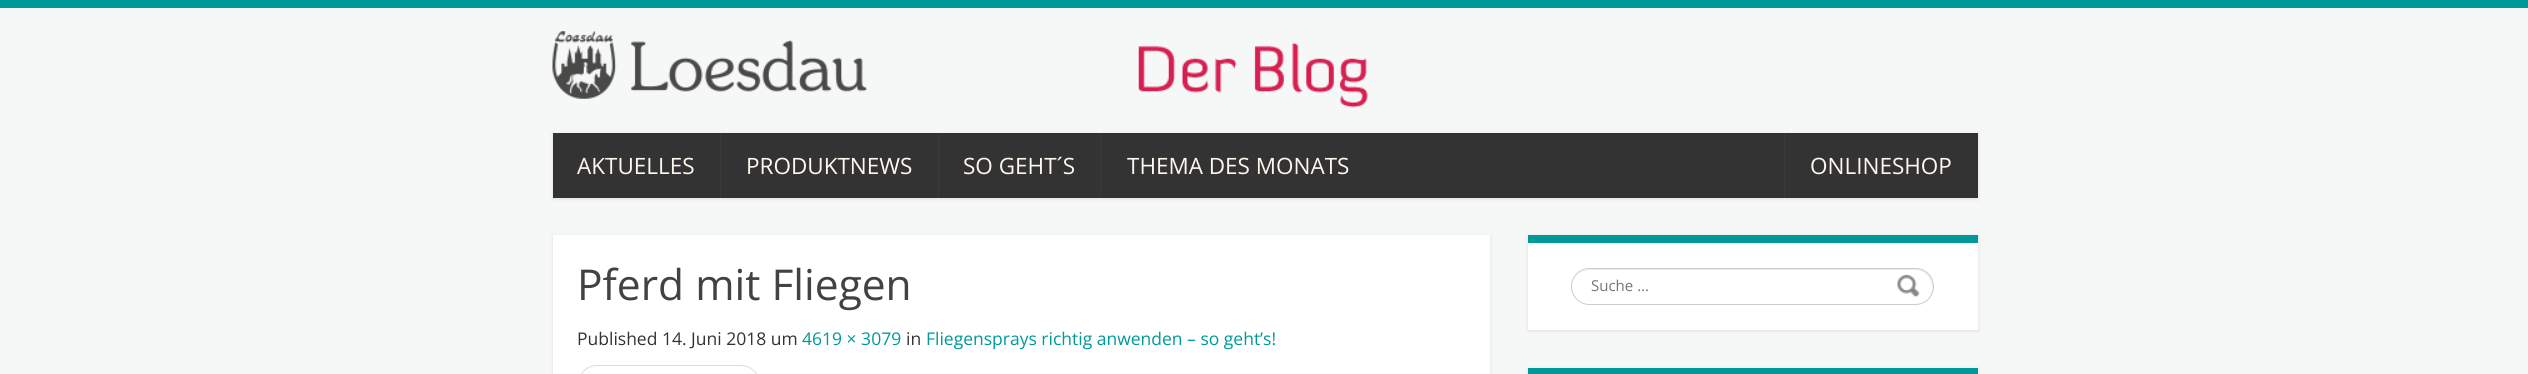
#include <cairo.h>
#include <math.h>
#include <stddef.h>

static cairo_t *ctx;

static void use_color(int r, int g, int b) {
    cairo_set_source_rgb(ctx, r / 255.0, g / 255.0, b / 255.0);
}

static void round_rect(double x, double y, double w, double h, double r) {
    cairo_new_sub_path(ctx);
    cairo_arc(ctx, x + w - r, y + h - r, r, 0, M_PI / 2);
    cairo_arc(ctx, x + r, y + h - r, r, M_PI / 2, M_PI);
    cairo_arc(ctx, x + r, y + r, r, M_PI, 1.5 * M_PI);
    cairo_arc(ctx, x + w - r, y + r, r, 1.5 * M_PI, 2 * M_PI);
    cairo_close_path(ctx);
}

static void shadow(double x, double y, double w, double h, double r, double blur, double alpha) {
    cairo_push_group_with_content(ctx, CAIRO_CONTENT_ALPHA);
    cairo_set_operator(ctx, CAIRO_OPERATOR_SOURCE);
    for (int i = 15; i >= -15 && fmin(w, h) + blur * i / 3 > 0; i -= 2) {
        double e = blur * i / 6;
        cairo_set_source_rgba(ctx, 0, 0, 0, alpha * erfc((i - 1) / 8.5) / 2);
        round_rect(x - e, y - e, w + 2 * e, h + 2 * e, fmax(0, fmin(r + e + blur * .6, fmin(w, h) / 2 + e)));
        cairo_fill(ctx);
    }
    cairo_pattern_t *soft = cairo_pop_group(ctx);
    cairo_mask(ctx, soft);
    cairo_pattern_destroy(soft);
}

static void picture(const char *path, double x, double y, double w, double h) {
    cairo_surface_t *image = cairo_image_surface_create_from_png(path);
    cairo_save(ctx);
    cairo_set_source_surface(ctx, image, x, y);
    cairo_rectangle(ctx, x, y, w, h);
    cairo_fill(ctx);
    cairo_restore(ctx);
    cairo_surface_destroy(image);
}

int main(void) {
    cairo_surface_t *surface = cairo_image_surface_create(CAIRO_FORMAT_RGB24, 2528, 374);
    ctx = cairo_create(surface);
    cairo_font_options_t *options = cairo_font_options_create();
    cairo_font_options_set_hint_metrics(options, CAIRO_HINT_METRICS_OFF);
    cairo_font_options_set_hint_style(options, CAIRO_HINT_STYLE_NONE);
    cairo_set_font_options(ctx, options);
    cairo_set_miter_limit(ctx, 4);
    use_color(246, 248, 247);
    cairo_paint(ctx);
    use_color(0, 153, 153);
    cairo_rectangle(ctx, 0, 0, 2528, 8);
    cairo_fill(ctx);
    picture("img1.png", 552, 31, 816, 77);
    use_color(0, 0, 0);
    shadow(553, 134, 1425, 65, 0, 2, 0.1);
    use_color(51, 51, 51);
    cairo_rectangle(ctx, 553, 133, 1425, 65);
    cairo_fill(ctx);
    cairo_select_font_face(ctx, "Open Sans", CAIRO_FONT_SLANT_NORMAL, CAIRO_FONT_WEIGHT_NORMAL);
    cairo_set_font_size(ctx, 22.5);
    use_color(255, 248, 237);
    cairo_move_to(ctx, 577, 174);
    cairo_show_text(ctx, "AKTUELLES");
    use_color(58, 58, 58);
    cairo_rectangle(ctx, 720, 133, 1, 65);
    cairo_fill(ctx);
    use_color(255, 248, 237);
    cairo_move_to(ctx, 746, 174);
    cairo_show_text(ctx, "PRODUKTNEWS");
    use_color(58, 58, 58);
    cairo_rectangle(ctx, 938, 133, 1, 65);
    cairo_fill(ctx);
    use_color(255, 248, 237);
    cairo_move_to(ctx, 963, 174);
    cairo_show_text(ctx, "SO GEHT´S");
    use_color(58, 58, 58);
    cairo_rectangle(ctx, 1100, 133, 1, 65);
    cairo_fill(ctx);
    use_color(255, 248, 237);
    cairo_move_to(ctx, 1127, 174);
    cairo_show_text(ctx, "THEMA DES MONATS");
    use_color(58, 58, 58);
    cairo_rectangle(ctx, 1784, 133, 1, 65);
    cairo_fill(ctx);
    use_color(255, 248, 237);
    cairo_move_to(ctx, 1810, 174);
    cairo_show_text(ctx, "ONLINESHOP");
    use_color(0, 0, 0);
    shadow(553, 236, 937, 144, 0, 2, 0.1);
    use_color(255, 255, 255);
    cairo_rectangle(ctx, 553, 235, 937, 139);
    cairo_fill(ctx);
    cairo_set_font_size(ctx, 42.5);
    use_color(67, 66, 66);
    cairo_move_to(ctx, 577, 300);
    cairo_show_text(ctx, "Pferd mit Fliegen");
    cairo_set_font_size(ctx, 17.5);
    use_color(51, 51, 51);
    cairo_move_to(ctx, 577, 345);
    cairo_show_text(ctx, "Published 14. Juni 2018 um");
    use_color(0, 153, 153);
    cairo_move_to(ctx, 802, 345);
    cairo_show_text(ctx, "4619 × 3079");
    use_color(51, 51, 51);
    cairo_move_to(ctx, 906, 345);
    cairo_show_text(ctx, "in");
    use_color(0, 153, 153);
    cairo_move_to(ctx, 926, 345);
    cairo_show_text(ctx, "Fliegensprays richtig anwenden – so geht’s!");
    round_rect(578.5, 365.5, 181, 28, 18.5);
    use_color(221, 221, 221);
    cairo_set_line_width(ctx, 1);
    cairo_stroke(ctx);
    use_color(0, 0, 0);
    shadow(1528, 236, 450, 95, 0, 2, 0.1);
    use_color(255, 255, 255);
    cairo_rectangle(ctx, 1528, 243, 450, 87);
    cairo_fill(ctx);
    use_color(0, 153, 153);
    cairo_rectangle(ctx, 1528, 235, 450, 8);
    cairo_fill(ctx);
    use_color(236, 236, 236);
    cairo_new_path(ctx);
    cairo_move_to(ctx, 1590, 270);
    cairo_line_to(ctx, 1915, 270);
    cairo_curve_to(ctx, 1925, 270, 1932, 278, 1932, 288);
    cairo_curve_to(ctx, 1932, 291, 1931, 295, 1929, 297);
    cairo_curve_to(ctx, 1932, 294, 1933, 291, 1933, 286);
    cairo_curve_to(ctx, 1933, 277, 1925, 269, 1916, 269);
    cairo_line_to(ctx, 1590, 269);
    cairo_curve_to(ctx, 1585, 269, 1579, 272, 1576, 276);
    cairo_curve_to(ctx, 1580, 272, 1584, 270, 1590, 270);
    cairo_close_path(ctx);
    cairo_fill(ctx);
    round_rect(1571.5, 268.5, 362, 36, 18);
    use_color(204, 204, 204);
    cairo_stroke(ctx);
    cairo_set_font_size(ctx, 15);
    use_color(117, 117, 117);
    cairo_move_to(ctx, 1591, 291);
    cairo_show_text(ctx, "Suche …");
    picture("img2.png", 1897, 274, 23, 23);
    use_color(0, 0, 0);
    shadow(1528, 369, 450, 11, 0, 2, 0.1);
    use_color(0, 153, 153);
    cairo_rectangle(ctx, 1528, 368, 450, 6);
    cairo_fill(ctx);
    cairo_surface_write_to_png(surface, "result.png");
    cairo_font_options_destroy(options);
    cairo_destroy(ctx);
    cairo_surface_destroy(surface);
    return 0;
}
